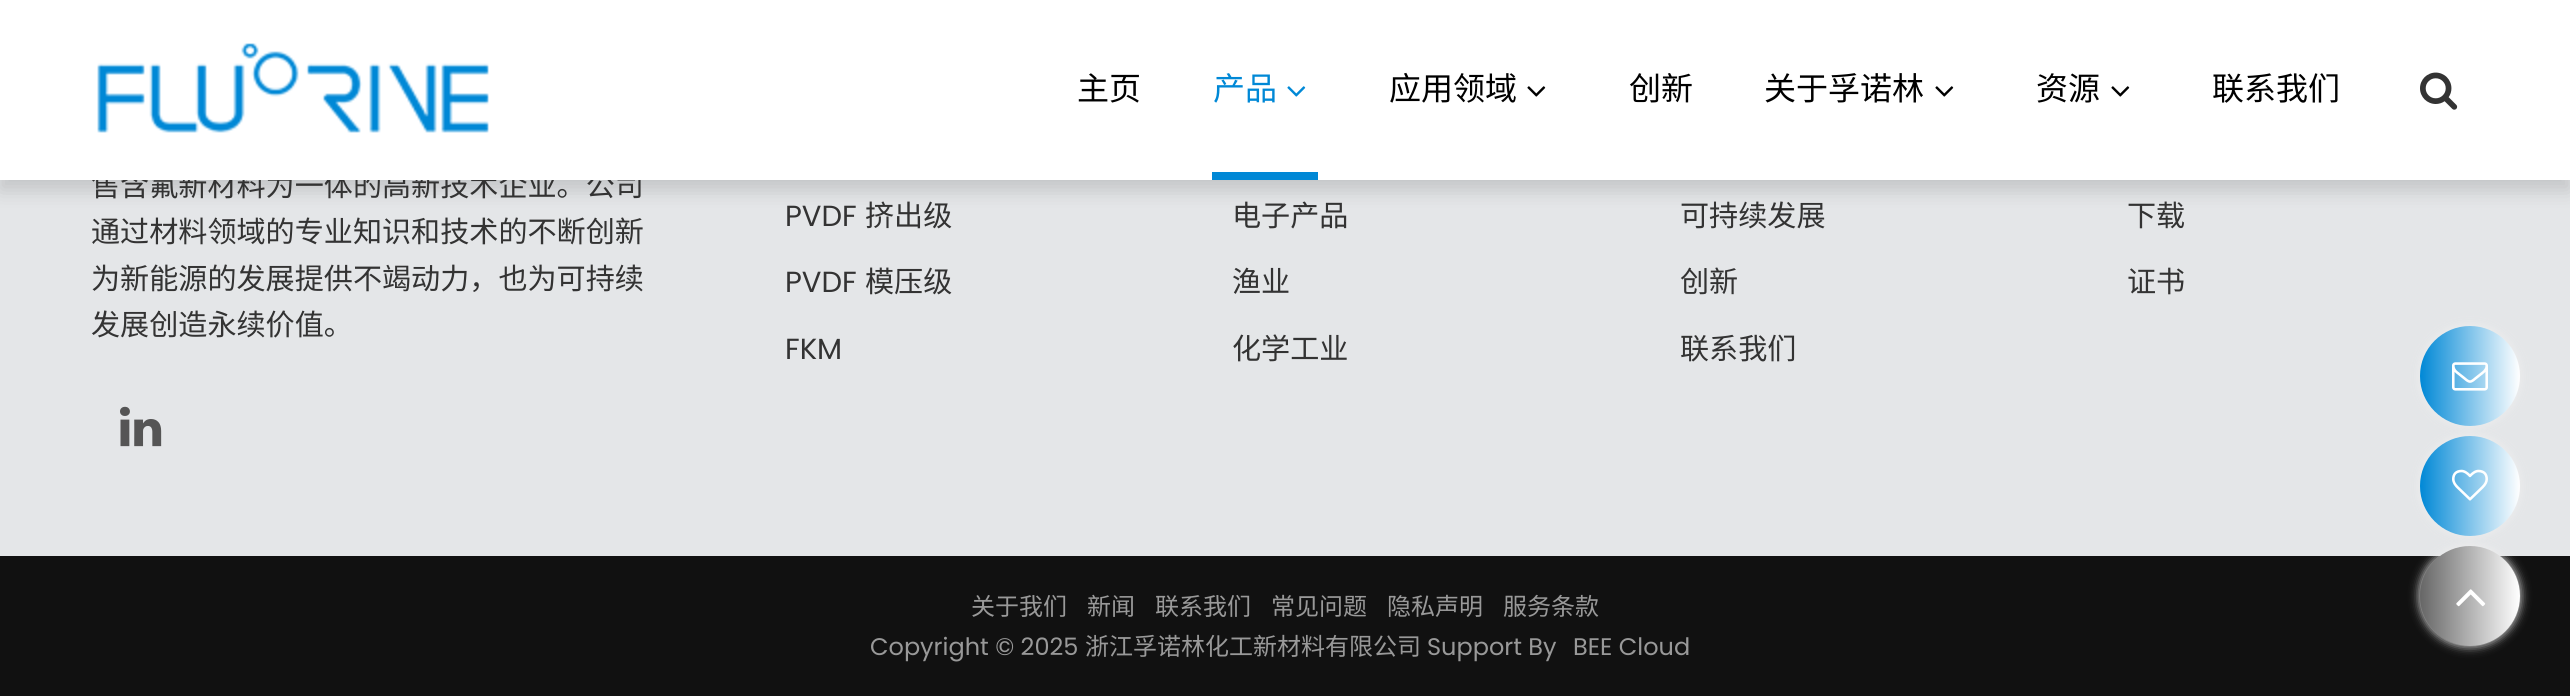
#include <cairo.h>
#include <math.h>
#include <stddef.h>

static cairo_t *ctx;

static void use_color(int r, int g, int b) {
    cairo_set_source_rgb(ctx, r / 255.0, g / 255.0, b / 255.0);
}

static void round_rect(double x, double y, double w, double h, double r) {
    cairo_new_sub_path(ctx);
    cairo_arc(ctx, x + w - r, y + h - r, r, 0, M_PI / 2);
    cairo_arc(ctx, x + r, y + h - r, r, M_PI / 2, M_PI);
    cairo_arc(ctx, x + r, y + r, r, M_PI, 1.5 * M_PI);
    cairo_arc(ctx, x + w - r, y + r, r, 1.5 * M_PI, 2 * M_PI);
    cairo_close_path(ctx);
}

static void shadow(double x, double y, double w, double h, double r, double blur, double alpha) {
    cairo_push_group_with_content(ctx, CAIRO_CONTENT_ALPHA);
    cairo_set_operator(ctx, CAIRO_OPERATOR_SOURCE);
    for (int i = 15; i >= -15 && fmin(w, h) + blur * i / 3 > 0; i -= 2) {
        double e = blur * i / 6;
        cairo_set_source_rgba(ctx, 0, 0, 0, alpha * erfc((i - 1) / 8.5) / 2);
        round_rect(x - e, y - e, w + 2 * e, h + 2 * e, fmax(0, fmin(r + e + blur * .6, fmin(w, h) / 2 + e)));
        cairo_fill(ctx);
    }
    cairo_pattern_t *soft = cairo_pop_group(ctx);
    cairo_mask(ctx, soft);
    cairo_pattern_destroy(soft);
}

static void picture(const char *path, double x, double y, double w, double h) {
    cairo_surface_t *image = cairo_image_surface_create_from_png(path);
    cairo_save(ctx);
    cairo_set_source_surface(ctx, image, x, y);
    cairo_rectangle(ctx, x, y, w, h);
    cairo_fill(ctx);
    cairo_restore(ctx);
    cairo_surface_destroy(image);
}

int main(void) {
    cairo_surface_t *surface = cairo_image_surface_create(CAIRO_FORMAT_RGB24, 2570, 696);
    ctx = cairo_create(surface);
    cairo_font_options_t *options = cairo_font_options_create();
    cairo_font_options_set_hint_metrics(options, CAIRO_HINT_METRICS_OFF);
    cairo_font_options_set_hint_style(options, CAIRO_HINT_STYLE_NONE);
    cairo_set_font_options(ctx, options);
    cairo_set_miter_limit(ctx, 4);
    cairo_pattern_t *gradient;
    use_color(228, 230, 232);
    cairo_paint(ctx);
    use_color(0, 0, 0);
    shadow(0, 10, 2570, 180, 0, 10, 0.15);
    cairo_select_font_face(ctx, "Noto Sans CJK SC", CAIRO_FONT_SLANT_NORMAL, CAIRO_FONT_WEIGHT_NORMAL);
    cairo_set_font_size(ctx, 29.1);
    use_color(51, 51, 51);
    cairo_move_to(ctx, 91, 196);
    cairo_show_text(ctx, "售含氟新材料为一体的高新技术企业。公司");
    use_color(255, 255, 255);
    cairo_rectangle(ctx, 0, 0, 2570, 180);
    cairo_fill(ctx);
    picture("img1.png", 97, 43, 392, 90);
    cairo_set_font_size(ctx, 32);
    use_color(0, 0, 0);
    cairo_move_to(ctx, 1077, 100);
    cairo_show_text(ctx, "主页");
    use_color(0, 136, 214);
    cairo_move_to(ctx, 1213, 100);
    cairo_show_text(ctx, "产品");
    picture("img2.png", 1287, 86, 19, 11);
    cairo_rectangle(ctx, 1212, 172, 106, 8);
    cairo_fill(ctx);
    use_color(0, 0, 0);
    cairo_move_to(ctx, 1389, 100);
    cairo_show_text(ctx, "应用领域");
    picture("img3.png", 1527, 86, 19, 11);
    cairo_move_to(ctx, 1629, 100);
    cairo_show_text(ctx, "创新");
    cairo_move_to(ctx, 1764, 100);
    cairo_show_text(ctx, "关于孚诺林");
    picture("img3.png", 1935, 86, 19, 11);
    cairo_move_to(ctx, 2036, 100);
    cairo_show_text(ctx, "资源");
    picture("img3.png", 2111, 86, 19, 11);
    cairo_move_to(ctx, 2212, 100);
    cairo_show_text(ctx, "联系我们");
    picture("img4.png", 2420, 72, 38, 38);
    cairo_set_font_size(ctx, 29.1);
    use_color(51, 51, 51);
    cairo_move_to(ctx, 91, 242);
    cairo_show_text(ctx, "通过材料领域的专业知识和技术的不断创新");
    cairo_move_to(ctx, 91, 289);
    cairo_show_text(ctx, "为新能源的发展提供不竭动力，也为可持续");
    cairo_move_to(ctx, 91, 335);
    cairo_show_text(ctx, "发展创造永续价值。");
    picture("img5.png", 120, 406, 42, 41);
    cairo_select_font_face(ctx, "Poppins", CAIRO_FONT_SLANT_NORMAL, CAIRO_FONT_WEIGHT_NORMAL);
    cairo_move_to(ctx, 785, 226);
    cairo_show_text(ctx, "PVDF");
    cairo_select_font_face(ctx, "Noto Sans CJK SC", CAIRO_FONT_SLANT_NORMAL, CAIRO_FONT_WEIGHT_NORMAL);
    cairo_move_to(ctx, 865, 226);
    cairo_show_text(ctx, "挤出级");
    cairo_select_font_face(ctx, "Poppins", CAIRO_FONT_SLANT_NORMAL, CAIRO_FONT_WEIGHT_NORMAL);
    cairo_move_to(ctx, 785, 292);
    cairo_show_text(ctx, "PVDF");
    cairo_select_font_face(ctx, "Noto Sans CJK SC", CAIRO_FONT_SLANT_NORMAL, CAIRO_FONT_WEIGHT_NORMAL);
    cairo_move_to(ctx, 865, 292);
    cairo_show_text(ctx, "模压级");
    cairo_select_font_face(ctx, "Poppins", CAIRO_FONT_SLANT_NORMAL, CAIRO_FONT_WEIGHT_NORMAL);
    cairo_move_to(ctx, 785, 359);
    cairo_show_text(ctx, "FKM");
    cairo_select_font_face(ctx, "Noto Sans CJK SC", CAIRO_FONT_SLANT_NORMAL, CAIRO_FONT_WEIGHT_NORMAL);
    cairo_move_to(ctx, 1232, 226);
    cairo_show_text(ctx, "电子产品");
    cairo_move_to(ctx, 1232, 292);
    cairo_show_text(ctx, "渔业");
    cairo_move_to(ctx, 1232, 359);
    cairo_show_text(ctx, "化学工业");
    cairo_move_to(ctx, 1680, 226);
    cairo_show_text(ctx, "可持续发展");
    cairo_move_to(ctx, 1680, 292);
    cairo_show_text(ctx, "创新");
    cairo_move_to(ctx, 1680, 359);
    cairo_show_text(ctx, "联系我们");
    cairo_move_to(ctx, 2127, 226);
    cairo_show_text(ctx, "下载");
    cairo_move_to(ctx, 2127, 292);
    cairo_show_text(ctx, "证书");
    use_color(17, 17, 17);
    cairo_rectangle(ctx, 0, 556, 2570, 140);
    cairo_fill(ctx);
    cairo_set_font_size(ctx, 24);
    use_color(153, 153, 153);
    cairo_move_to(ctx, 971, 615);
    cairo_show_text(ctx, "关于我们");
    cairo_move_to(ctx, 1087, 615);
    cairo_show_text(ctx, "新闻");
    cairo_move_to(ctx, 1155, 615);
    cairo_show_text(ctx, "联系我们");
    cairo_move_to(ctx, 1271, 615);
    cairo_show_text(ctx, "常见问题");
    cairo_move_to(ctx, 1387, 615);
    cairo_show_text(ctx, "隐私声明");
    cairo_move_to(ctx, 1503, 615);
    cairo_show_text(ctx, "服务条款");
    cairo_select_font_face(ctx, "Poppins", CAIRO_FONT_SLANT_NORMAL, CAIRO_FONT_WEIGHT_NORMAL);
    cairo_move_to(ctx, 870, 655);
    cairo_show_text(ctx, "Copyright © 2025");
    cairo_select_font_face(ctx, "Noto Sans CJK SC", CAIRO_FONT_SLANT_NORMAL, CAIRO_FONT_WEIGHT_NORMAL);
    cairo_move_to(ctx, 1085, 655);
    cairo_show_text(ctx, "浙江孚诺林化工新材料有限公司");
    cairo_select_font_face(ctx, "Poppins", CAIRO_FONT_SLANT_NORMAL, CAIRO_FONT_WEIGHT_NORMAL);
    cairo_move_to(ctx, 1427, 655);
    cairo_show_text(ctx, "Support By");
    cairo_move_to(ctx, 1573, 655);
    cairo_show_text(ctx, "BEE Cloud");
    use_color(238, 238, 238);
    shadow(2420, 326, 100, 100, 50, 5, 1);
    gradient = cairo_pattern_create_linear(2420, 376, 2520, 376);
    cairo_pattern_add_color_stop_rgba(gradient, 0, 0, 0.533, 0.839, 1);
    cairo_pattern_add_color_stop_rgba(gradient, 1, 1, 1, 1, 1);
    cairo_set_source(ctx, gradient);
    cairo_pattern_destroy(gradient);
    cairo_arc(ctx, 2470, 376, 50, 0, 2 * M_PI);
    cairo_fill(ctx);
    picture("img6.png", 2452, 362, 36, 29);
    use_color(238, 238, 238);
    shadow(2420, 436, 100, 100, 50, 5, 1);
    gradient = cairo_pattern_create_linear(2420, 486, 2520, 486);
    cairo_pattern_add_color_stop_rgba(gradient, 0, 0, 0.533, 0.839, 1);
    cairo_pattern_add_color_stop_rgba(gradient, 1, 1, 1, 1, 1);
    cairo_set_source(ctx, gradient);
    cairo_pattern_destroy(gradient);
    cairo_arc(ctx, 2470, 486, 50, 0, 2 * M_PI);
    cairo_fill(ctx);
    picture("img7.png", 2452, 469, 36, 32);
    use_color(238, 238, 238);
    shadow(2420, 546, 100, 100, 50, 5, 1);
    gradient = cairo_pattern_create_linear(2420, 596, 2520, 596);
    cairo_pattern_add_color_stop_rgba(gradient, 0, 0.4, 0.4, 0.4, 1);
    cairo_pattern_add_color_stop_rgba(gradient, 1, 1, 1, 1, 1);
    cairo_set_source(ctx, gradient);
    cairo_pattern_destroy(gradient);
    cairo_arc(ctx, 2470, 596, 50, 0, 2 * M_PI);
    cairo_fill(ctx);
    picture("img8.png", 2456, 589, 30, 18);
    cairo_surface_write_to_png(surface, "result.png");
    cairo_font_options_destroy(options);
    cairo_destroy(ctx);
    cairo_surface_destroy(surface);
    return 0;
}
